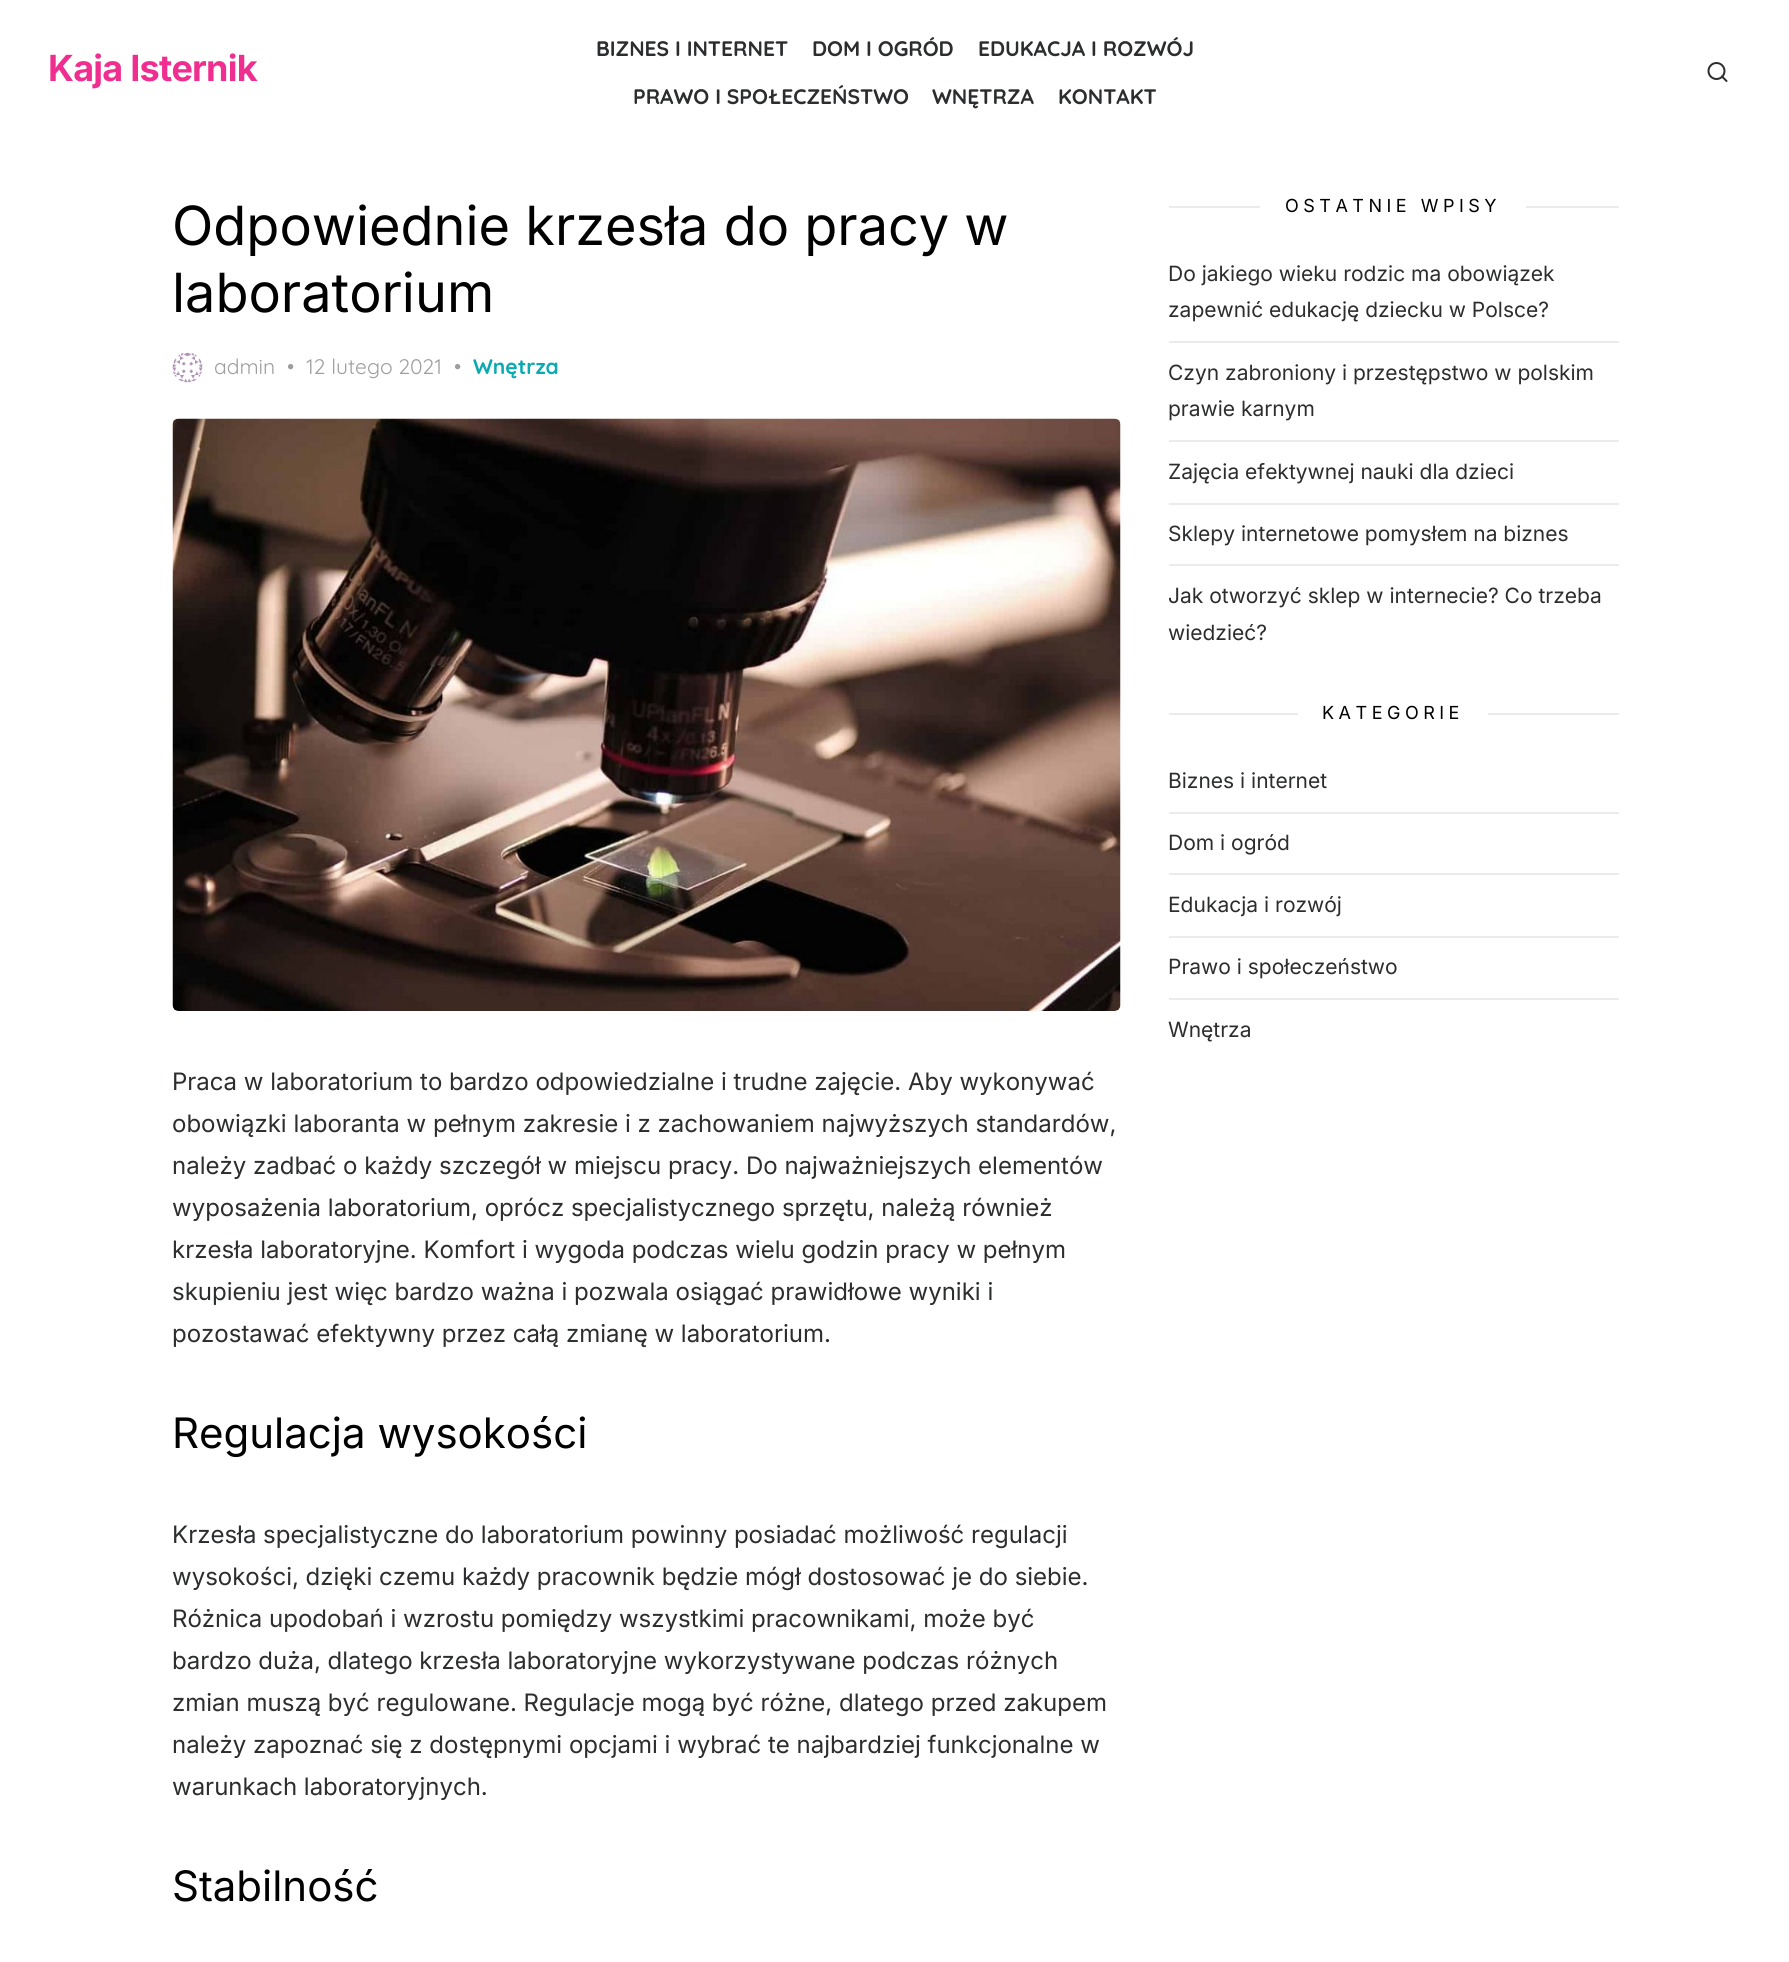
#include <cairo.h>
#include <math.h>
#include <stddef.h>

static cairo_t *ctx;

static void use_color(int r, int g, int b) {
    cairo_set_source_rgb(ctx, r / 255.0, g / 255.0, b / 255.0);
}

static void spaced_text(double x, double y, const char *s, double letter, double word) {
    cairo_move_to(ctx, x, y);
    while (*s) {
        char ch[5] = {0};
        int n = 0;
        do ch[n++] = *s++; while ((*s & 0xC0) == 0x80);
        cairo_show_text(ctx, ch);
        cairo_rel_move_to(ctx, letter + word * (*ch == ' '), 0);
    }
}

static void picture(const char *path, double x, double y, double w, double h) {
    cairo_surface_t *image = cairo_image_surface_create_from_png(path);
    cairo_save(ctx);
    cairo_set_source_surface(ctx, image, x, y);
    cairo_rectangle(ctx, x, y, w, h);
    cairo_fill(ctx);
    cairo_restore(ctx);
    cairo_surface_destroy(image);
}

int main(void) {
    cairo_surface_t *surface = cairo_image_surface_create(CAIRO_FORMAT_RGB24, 1789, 1962);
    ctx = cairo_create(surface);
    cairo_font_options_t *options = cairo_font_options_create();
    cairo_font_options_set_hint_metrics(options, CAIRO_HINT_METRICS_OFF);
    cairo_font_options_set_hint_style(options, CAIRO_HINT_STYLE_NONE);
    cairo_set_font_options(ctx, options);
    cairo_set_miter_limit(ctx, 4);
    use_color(255, 255, 255);
    cairo_paint(ctx);
    cairo_select_font_face(ctx, "Inter", CAIRO_FONT_SLANT_NORMAL, CAIRO_FONT_WEIGHT_BOLD);
    cairo_set_font_size(ctx, 36);
    use_color(240, 46, 144);
    spaced_text(48, 81, "Kaja Isternik", -0.75, 0);
    cairo_select_font_face(ctx, "Quicksand", CAIRO_FONT_SLANT_NORMAL, CAIRO_FONT_WEIGHT_BOLD);
    cairo_set_font_size(ctx, 21);
    use_color(44, 45, 46);
    cairo_move_to(ctx, 596, 56);
    cairo_show_text(ctx, "BIZNES I INTERNET");
    cairo_move_to(ctx, 812, 56);
    cairo_show_text(ctx, "DOM I OGRÓD");
    cairo_move_to(ctx, 978, 56);
    cairo_show_text(ctx, "EDUKACJA I ROZWÓJ");
    cairo_move_to(ctx, 633, 104);
    cairo_show_text(ctx, "PRAWO I SPOŁECZEŃSTWO");
    cairo_move_to(ctx, 932, 104);
    cairo_show_text(ctx, "WNĘTRZA");
    cairo_move_to(ctx, 1058, 104);
    cairo_show_text(ctx, "KONTAKT");
    cairo_new_path(ctx);
    cairo_arc(ctx, 1716.5, 71, 8, 0, 2 * M_PI);
    cairo_stroke(ctx);
    cairo_new_path(ctx);
    cairo_move_to(ctx, 1726.5, 81);
    cairo_line_to(ctx, 1722, 76.5);
    cairo_set_line_cap(ctx, CAIRO_LINE_CAP_ROUND);
    cairo_set_line_join(ctx, CAIRO_LINE_JOIN_ROUND);
    cairo_stroke(ctx);
    cairo_select_font_face(ctx, "Inter", CAIRO_FONT_SLANT_NORMAL, CAIRO_FONT_WEIGHT_NORMAL);
    cairo_set_font_size(ctx, 54);
    use_color(0, 0, 0);
    cairo_move_to(ctx, 172, 245);
    cairo_show_text(ctx, "Odpowiednie krzesła do pracy w");
    cairo_move_to(ctx, 172, 312);
    cairo_show_text(ctx, "laboratorium");
    picture("img1.png", 172, 352, 31, 31);
    cairo_select_font_face(ctx, "Quicksand", CAIRO_FONT_SLANT_NORMAL, CAIRO_FONT_WEIGHT_NORMAL);
    cairo_set_font_size(ctx, 21);
    use_color(157, 158, 158);
    cairo_move_to(ctx, 214, 374);
    cairo_show_text(ctx, "admin");
    cairo_move_to(ctx, 287, 374);
    cairo_show_text(ctx, "•");
    cairo_move_to(ctx, 306, 374);
    cairo_show_text(ctx, "12 lutego 2021");
    cairo_move_to(ctx, 454, 374);
    cairo_show_text(ctx, "•");
    cairo_select_font_face(ctx, "Quicksand", CAIRO_FONT_SLANT_NORMAL, CAIRO_FONT_WEIGHT_BOLD);
    use_color(11, 170, 176);
    cairo_move_to(ctx, 473, 374);
    cairo_show_text(ctx, "Wnętrza");
    picture("img2.png", 172, 418, 949, 593);
    cairo_select_font_face(ctx, "Inter", CAIRO_FONT_SLANT_NORMAL, CAIRO_FONT_WEIGHT_NORMAL);
    cairo_set_font_size(ctx, 24);
    use_color(44, 45, 46);
    cairo_move_to(ctx, 172, 1090);
    cairo_show_text(ctx, "Praca w laboratorium to bardzo odpowiedzialne i trudne zajęcie. Aby wykonywać");
    cairo_move_to(ctx, 172, 1132);
    cairo_show_text(ctx, "obowiązki laboranta w pełnym zakresie i z zachowaniem najwyższych standardów,");
    cairo_move_to(ctx, 172, 1174);
    cairo_show_text(ctx, "należy zadbać o każdy szczegół w miejscu pracy. Do najważniejszych elementów");
    cairo_move_to(ctx, 172, 1216);
    cairo_show_text(ctx, "wyposażenia laboratorium, oprócz specjalistycznego sprzętu, należą również");
    cairo_move_to(ctx, 172, 1258);
    cairo_show_text(ctx, "krzesła laboratoryjne. Komfort i wygoda podczas wielu godzin pracy w pełnym");
    cairo_move_to(ctx, 172, 1300);
    cairo_show_text(ctx, "skupieniu jest więc bardzo ważna i pozwala osiągać prawidłowe wyniki i");
    cairo_move_to(ctx, 172, 1342);
    cairo_show_text(ctx, "pozostawać efektywny przez całą zmianę w laboratorium.");
    cairo_set_font_size(ctx, 42);
    use_color(0, 0, 0);
    cairo_move_to(ctx, 172, 1448);
    cairo_show_text(ctx, "Regulacja wysokości");
    cairo_set_font_size(ctx, 24);
    use_color(44, 45, 46);
    cairo_move_to(ctx, 172, 1543);
    cairo_show_text(ctx, "Krzesła specjalistyczne do laboratorium powinny posiadać możliwość regulacji");
    cairo_move_to(ctx, 172, 1585);
    cairo_show_text(ctx, "wysokości, dzięki czemu każdy pracownik będzie mógł dostosować je do siebie.");
    cairo_move_to(ctx, 172, 1627);
    cairo_show_text(ctx, "Różnica upodobań i wzrostu pomiędzy wszystkimi pracownikami, może być");
    cairo_move_to(ctx, 172, 1669);
    cairo_show_text(ctx, "bardzo duża, dlatego krzesła laboratoryjne wykorzystywane podczas różnych");
    cairo_move_to(ctx, 172, 1711);
    cairo_show_text(ctx, "zmian muszą być regulowane. Regulacje mogą być różne, dlatego przed zakupem");
    cairo_move_to(ctx, 172, 1753);
    cairo_show_text(ctx, "należy zapoznać się z dostępnymi opcjami i wybrać te najbardziej funkcjonalne w");
    cairo_move_to(ctx, 172, 1795);
    cairo_show_text(ctx, "warunkach laboratoryjnych.");
    cairo_set_font_size(ctx, 42);
    use_color(0, 0, 0);
    cairo_move_to(ctx, 172, 1901);
    cairo_show_text(ctx, "Stabilność");
    use_color(235, 235, 235);
    cairo_rectangle(ctx, 1169, 206, 91, 2);
    cairo_fill(ctx);
    cairo_set_font_size(ctx, 18);
    use_color(0, 0, 0);
    spaced_text(1285, 212, "OSTATNIE WPISY", 4.5, 0);
    use_color(235, 235, 235);
    cairo_rectangle(ctx, 1526, 206, 93, 2);
    cairo_fill(ctx);
    cairo_rectangle(ctx, 1169, 341, 450, 2);
    cairo_fill(ctx);
    cairo_set_font_size(ctx, 21);
    use_color(44, 45, 46);
    cairo_move_to(ctx, 1168, 281);
    cairo_show_text(ctx, "Do jakiego wieku rodzic ma obowiązek");
    cairo_move_to(ctx, 1168, 317);
    cairo_show_text(ctx, "zapewnić edukację dziecku w Polsce?");
    use_color(235, 235, 235);
    cairo_rectangle(ctx, 1169, 440, 450, 2);
    cairo_fill(ctx);
    use_color(44, 45, 46);
    cairo_move_to(ctx, 1168, 380);
    cairo_show_text(ctx, "Czyn zabroniony i przestępstwo w polskim");
    cairo_move_to(ctx, 1168, 416);
    cairo_show_text(ctx, "prawie karnym");
    use_color(235, 235, 235);
    cairo_rectangle(ctx, 1169, 503, 450, 2);
    cairo_fill(ctx);
    use_color(44, 45, 46);
    cairo_move_to(ctx, 1168, 479);
    cairo_show_text(ctx, "Zajęcia efektywnej nauki dla dzieci");
    use_color(235, 235, 235);
    cairo_rectangle(ctx, 1169, 564, 450, 2);
    cairo_fill(ctx);
    use_color(44, 45, 46);
    cairo_move_to(ctx, 1168, 541);
    cairo_show_text(ctx, "Sklepy internetowe pomysłem na biznes");
    cairo_move_to(ctx, 1168, 603);
    cairo_show_text(ctx, "Jak otworzyć sklep w internecie? Co trzeba");
    cairo_move_to(ctx, 1168, 640);
    cairo_show_text(ctx, "wiedzieć?");
    use_color(235, 235, 235);
    cairo_rectangle(ctx, 1169, 713, 129, 2);
    cairo_fill(ctx);
    cairo_set_font_size(ctx, 18);
    use_color(0, 0, 0);
    spaced_text(1322, 719, "KATEGORIE", 4.5, 0);
    use_color(235, 235, 235);
    cairo_rectangle(ctx, 1488, 713, 131, 2);
    cairo_fill(ctx);
    cairo_rectangle(ctx, 1169, 812, 450, 2);
    cairo_fill(ctx);
    cairo_set_font_size(ctx, 21);
    use_color(44, 45, 46);
    cairo_move_to(ctx, 1168, 788);
    cairo_show_text(ctx, "Biznes i internet");
    use_color(235, 235, 235);
    cairo_rectangle(ctx, 1169, 873, 450, 2);
    cairo_fill(ctx);
    use_color(44, 45, 46);
    cairo_move_to(ctx, 1168, 850);
    cairo_show_text(ctx, "Dom i ogród");
    use_color(235, 235, 235);
    cairo_rectangle(ctx, 1169, 936, 450, 2);
    cairo_fill(ctx);
    use_color(44, 45, 46);
    cairo_move_to(ctx, 1168, 912);
    cairo_show_text(ctx, "Edukacja i rozwój");
    use_color(235, 235, 235);
    cairo_rectangle(ctx, 1169, 998, 450, 2);
    cairo_fill(ctx);
    use_color(44, 45, 46);
    cairo_move_to(ctx, 1168, 974);
    cairo_show_text(ctx, "Prawo i społeczeństwo");
    cairo_move_to(ctx, 1168, 1037);
    cairo_show_text(ctx, "Wnętrza");
    cairo_surface_write_to_png(surface, "result.png");
    cairo_font_options_destroy(options);
    cairo_destroy(ctx);
    cairo_surface_destroy(surface);
    return 0;
}
